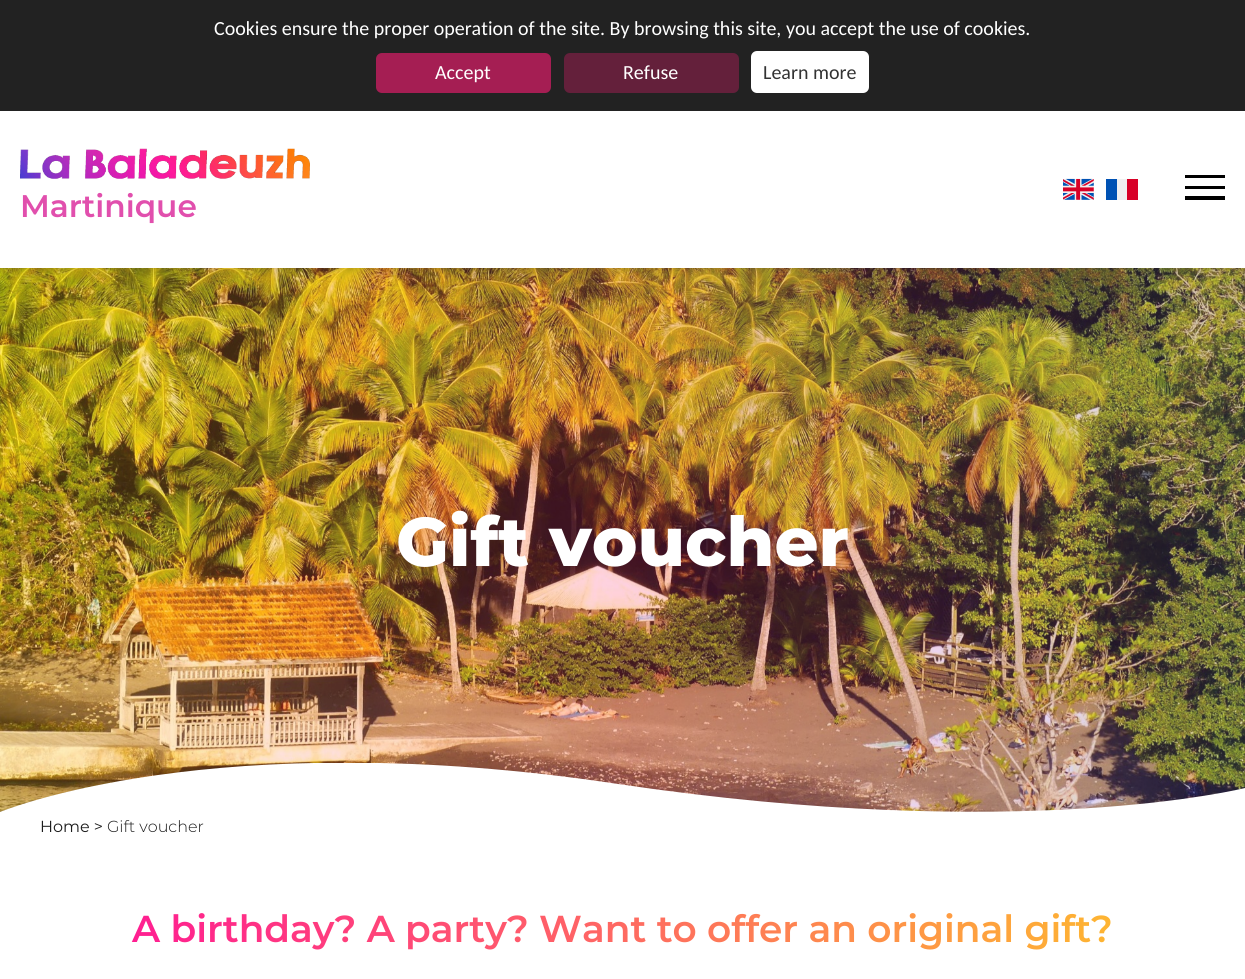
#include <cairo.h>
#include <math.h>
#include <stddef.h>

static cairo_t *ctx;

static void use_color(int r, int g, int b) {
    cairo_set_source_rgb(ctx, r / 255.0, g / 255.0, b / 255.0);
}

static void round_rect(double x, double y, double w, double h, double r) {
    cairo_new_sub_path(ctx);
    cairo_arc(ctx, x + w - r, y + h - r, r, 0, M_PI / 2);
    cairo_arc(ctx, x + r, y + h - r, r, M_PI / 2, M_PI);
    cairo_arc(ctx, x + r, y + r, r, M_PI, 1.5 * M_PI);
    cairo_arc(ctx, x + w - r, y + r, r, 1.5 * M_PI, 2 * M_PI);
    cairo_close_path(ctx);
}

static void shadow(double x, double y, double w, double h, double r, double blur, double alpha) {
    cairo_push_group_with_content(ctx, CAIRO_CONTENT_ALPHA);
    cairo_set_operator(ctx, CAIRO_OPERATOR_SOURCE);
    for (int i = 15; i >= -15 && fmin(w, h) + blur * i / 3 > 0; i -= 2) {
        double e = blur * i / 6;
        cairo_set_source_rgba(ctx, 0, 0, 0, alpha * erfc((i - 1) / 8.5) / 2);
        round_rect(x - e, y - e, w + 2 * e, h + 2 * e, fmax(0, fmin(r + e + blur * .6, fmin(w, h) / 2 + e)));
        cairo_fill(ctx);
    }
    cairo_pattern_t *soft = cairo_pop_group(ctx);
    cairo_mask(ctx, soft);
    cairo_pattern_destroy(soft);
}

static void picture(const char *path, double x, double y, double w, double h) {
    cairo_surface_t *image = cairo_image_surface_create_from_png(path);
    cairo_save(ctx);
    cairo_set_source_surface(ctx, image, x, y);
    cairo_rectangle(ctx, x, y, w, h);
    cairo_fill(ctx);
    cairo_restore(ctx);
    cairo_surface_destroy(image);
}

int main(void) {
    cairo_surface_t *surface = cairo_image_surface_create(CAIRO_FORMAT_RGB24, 1245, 979);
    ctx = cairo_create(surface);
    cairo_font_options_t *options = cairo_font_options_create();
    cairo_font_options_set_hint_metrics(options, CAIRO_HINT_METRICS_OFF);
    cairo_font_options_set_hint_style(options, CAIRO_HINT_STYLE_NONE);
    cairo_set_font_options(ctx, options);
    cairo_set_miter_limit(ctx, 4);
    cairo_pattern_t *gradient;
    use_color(255, 255, 255);
    cairo_paint(ctx);
    picture("img3.png", 0, 268, 1245, 544);
    gradient = cairo_pattern_create_linear(0, 541, 1245, 541);
    cairo_pattern_add_color_stop_rgba(gradient, 0, 0.996, 0.71, 0.196, 0.2);
    cairo_pattern_add_color_stop_rgba(gradient, 0.5, 1, 0.118, 0.569, 0.2);
    cairo_pattern_add_color_stop_rgba(gradient, 1, 0.286, 0.235, 0.827, 0.2);
    cairo_set_source(ctx, gradient);
    cairo_pattern_destroy(gradient);
    cairo_rectangle(ctx, 0, 268, 1245, 544);
    cairo_fill(ctx);
    use_color(28, 28, 28);
    shadow(0, 115, 1245, 156, 0, 4, 0.16);
    use_color(34, 34, 34);
    cairo_rectangle(ctx, 0, 0, 1245, 111);
    cairo_fill(ctx);
    cairo_select_font_face(ctx, "Carlito", CAIRO_FONT_SLANT_NORMAL, CAIRO_FONT_WEIGHT_NORMAL);
    cairo_set_font_size(ctx, 20);
    use_color(255, 255, 255);
    cairo_move_to(ctx, 214, 35);
    cairo_show_text(ctx, "Cookies ensure the proper operation of the site. By browsing this site, you accept the use of cookies.");
    use_color(165, 30, 83);
    round_rect(376, 53, 175, 40, 6);
    cairo_fill(ctx);
    use_color(255, 255, 255);
    cairo_move_to(ctx, 435, 79);
    cairo_show_text(ctx, "Accept");
    use_color(100, 32, 59);
    round_rect(564, 53, 175, 40, 6);
    cairo_fill(ctx);
    use_color(255, 255, 255);
    cairo_move_to(ctx, 623, 79);
    cairo_show_text(ctx, "Refuse");
    round_rect(751, 51, 118, 42, 6);
    cairo_fill(ctx);
    use_color(51, 51, 51);
    cairo_move_to(ctx, 763, 79);
    cairo_show_text(ctx, "Learn more");
    use_color(255, 255, 255);
    cairo_rectangle(ctx, 0, 111, 1245, 157);
    cairo_fill(ctx);
    picture("img1.png", 1063, 178, 31, 22);
    use_color(240, 240, 240);
    cairo_rectangle(ctx, 1117, 179, 10, 21);
    cairo_fill(ctx);
    use_color(0, 82, 180);
    cairo_rectangle(ctx, 1106, 179, 11, 21);
    cairo_fill(ctx);
    use_color(216, 0, 39);
    cairo_rectangle(ctx, 1127, 179, 11, 21);
    cairo_fill(ctx);
    use_color(0, 0, 0);
    cairo_rectangle(ctx, 1185, 186, 40, 3);
    cairo_fill(ctx);
    cairo_rectangle(ctx, 1185, 175, 40, 3);
    cairo_fill(ctx);
    cairo_rectangle(ctx, 1185, 196, 40, 4);
    cairo_fill(ctx);
    picture("img2.png", 20, 148, 290, 31);
    cairo_select_font_face(ctx, "Montserrat SemiBold", CAIRO_FONT_SLANT_NORMAL, CAIRO_FONT_WEIGHT_NORMAL);
    cairo_set_font_size(ctx, 31.25);
    use_color(225, 79, 173);
    cairo_move_to(ctx, 20, 217);
    cairo_show_text(ctx, "Martinique");
    cairo_select_font_face(ctx, "Montserrat ExtraBold", CAIRO_FONT_SLANT_NORMAL, CAIRO_FONT_WEIGHT_NORMAL);
    cairo_set_font_size(ctx, 68.75);
    use_color(255, 255, 255);
    cairo_move_to(ctx, 396, 566);
    cairo_show_text(ctx, "Gift voucher");
    cairo_save(ctx);
    cairo_rectangle(ctx, 0, 763, 1245, 52);
    cairo_clip(ctx);
    cairo_new_path(ctx);
    cairo_move_to(ctx, 0, 812);
    cairo_curve_to(ctx, 0, 812, 213, 723, 618, 784);
    cairo_curve_to(ctx, 1023, 844, 1245, 788, 1245, 788);
    cairo_line_to(ctx, 1245, 816);
    cairo_line_to(ctx, 0, 816);
    cairo_close_path(ctx);
    cairo_fill(ctx);
    cairo_restore(ctx);
    cairo_select_font_face(ctx, "Montserrat", CAIRO_FONT_SLANT_NORMAL, CAIRO_FONT_WEIGHT_NORMAL);
    cairo_set_font_size(ctx, 16);
    use_color(28, 28, 28);
    cairo_move_to(ctx, 40, 832);
    cairo_show_text(ctx, "Home >");
    cairo_select_font_face(ctx, "Montserrat Light", CAIRO_FONT_SLANT_NORMAL, CAIRO_FONT_WEIGHT_NORMAL);
    cairo_move_to(ctx, 107, 832);
    cairo_show_text(ctx, "Gift voucher");
    cairo_select_font_face(ctx, "Montserrat SemiBold", CAIRO_FONT_SLANT_NORMAL, CAIRO_FONT_WEIGHT_NORMAL);
    cairo_set_font_size(ctx, 37.5);
    gradient = cairo_pattern_create_linear(132, 935, 1113, 935);
    cairo_pattern_add_color_stop_rgba(gradient, 0, 1, 0.118, 0.569, 1);
    cairo_pattern_add_color_stop_rgba(gradient, 1, 0.996, 0.71, 0.196, 1);
    cairo_set_source(ctx, gradient);
    cairo_pattern_destroy(gradient);
    cairo_move_to(ctx, 132, 942);
    cairo_show_text(ctx, "A birthday? A party? Want to offer an original gift?");
    cairo_surface_write_to_png(surface, "result.png");
    cairo_font_options_destroy(options);
    cairo_destroy(ctx);
    cairo_surface_destroy(surface);
    return 0;
}
